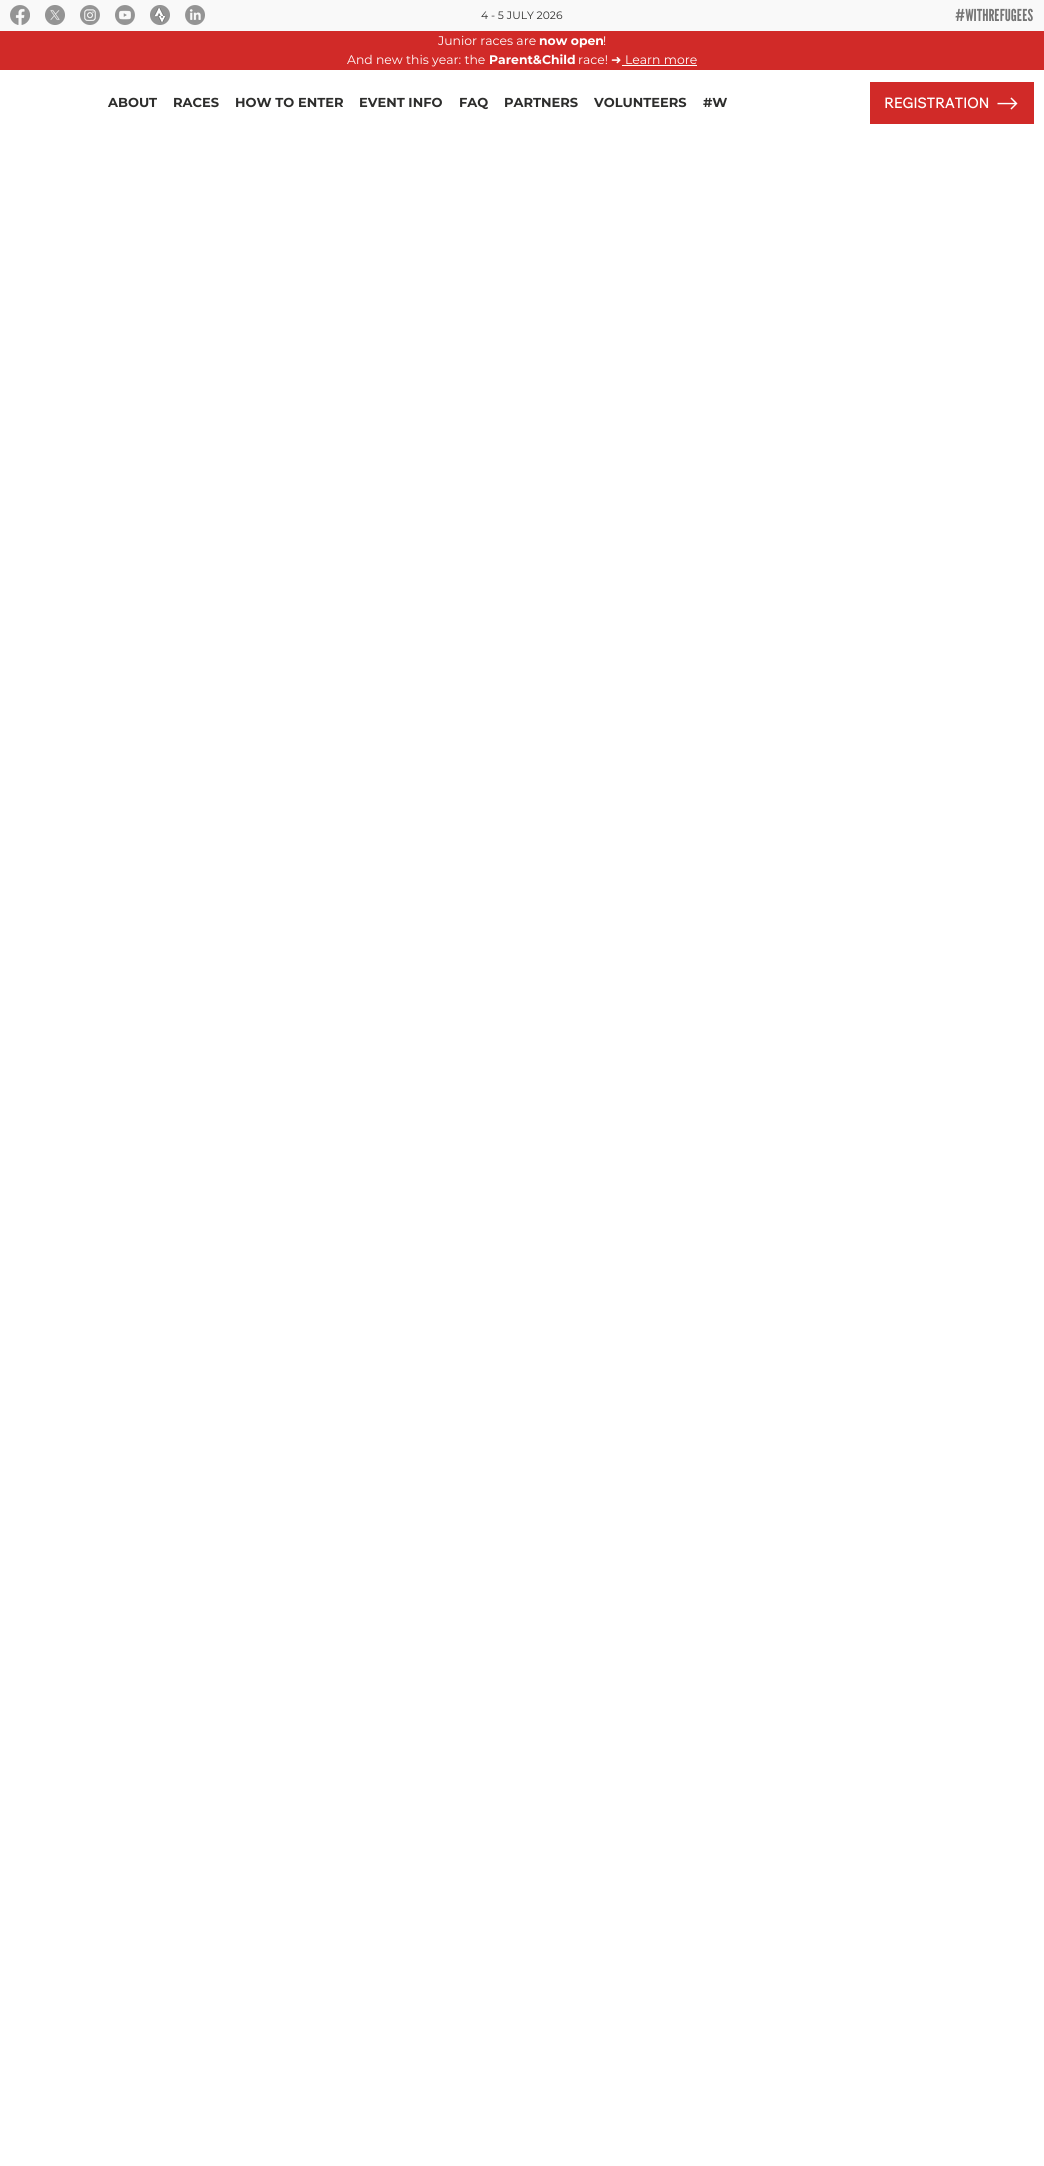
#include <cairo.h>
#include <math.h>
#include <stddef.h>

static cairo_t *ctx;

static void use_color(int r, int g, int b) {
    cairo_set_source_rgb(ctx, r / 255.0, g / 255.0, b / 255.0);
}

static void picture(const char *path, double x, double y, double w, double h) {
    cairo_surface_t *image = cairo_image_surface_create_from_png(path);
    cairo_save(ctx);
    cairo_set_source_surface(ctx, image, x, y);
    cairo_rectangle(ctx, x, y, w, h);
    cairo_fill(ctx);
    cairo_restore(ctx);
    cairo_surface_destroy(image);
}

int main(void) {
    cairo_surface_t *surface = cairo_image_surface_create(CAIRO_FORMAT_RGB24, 1044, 2166);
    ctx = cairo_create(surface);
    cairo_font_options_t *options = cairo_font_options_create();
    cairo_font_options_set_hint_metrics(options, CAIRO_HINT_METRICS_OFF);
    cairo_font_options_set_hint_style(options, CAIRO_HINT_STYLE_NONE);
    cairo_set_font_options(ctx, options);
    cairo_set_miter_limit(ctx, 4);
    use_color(255, 255, 255);
    cairo_paint(ctx);
    use_color(249, 249, 249);
    cairo_rectangle(ctx, 0, 0, 1044, 31);
    cairo_fill(ctx);
    picture("img1.png", 10, 5, 20, 20);
    picture("img2.png", 45, 5, 20, 20);
    picture("img3.png", 80, 5, 20, 20);
    picture("img4.png", 115, 5, 20, 20);
    picture("img5.png", 150, 5, 20, 20);
    picture("img6.png", 185, 5, 20, 20);
    cairo_select_font_face(ctx, "Montserrat", CAIRO_FONT_SLANT_NORMAL, CAIRO_FONT_WEIGHT_NORMAL);
    cairo_set_font_size(ctx, 10.75);
    use_color(45, 45, 44);
    cairo_move_to(ctx, 481, 19);
    cairo_show_text(ctx, "4 - 5 JULY 2026");
    cairo_select_font_face(ctx, "League Gothic", CAIRO_FONT_SLANT_NORMAL, CAIRO_FONT_WEIGHT_NORMAL);
    cairo_set_font_size(ctx, 16.5);
    use_color(117, 117, 117);
    cairo_move_to(ctx, 955, 21);
    cairo_show_text(ctx, "#WITHREFUGEES");
    use_color(209, 42, 40);
    cairo_rectangle(ctx, 0, 31, 1044, 39);
    cairo_fill(ctx);
    cairo_select_font_face(ctx, "Montserrat", CAIRO_FONT_SLANT_NORMAL, CAIRO_FONT_WEIGHT_NORMAL);
    cairo_set_font_size(ctx, 12.4);
    use_color(255, 255, 255);
    cairo_move_to(ctx, 438, 45);
    cairo_show_text(ctx, "Junior races are");
    cairo_select_font_face(ctx, "Montserrat", CAIRO_FONT_SLANT_NORMAL, CAIRO_FONT_WEIGHT_BOLD);
    cairo_move_to(ctx, 539, 45);
    cairo_show_text(ctx, "now open");
    cairo_select_font_face(ctx, "Montserrat", CAIRO_FONT_SLANT_NORMAL, CAIRO_FONT_WEIGHT_NORMAL);
    cairo_move_to(ctx, 603, 45);
    cairo_show_text(ctx, "!");
    cairo_move_to(ctx, 347, 64);
    cairo_show_text(ctx, "And new this year: the");
    cairo_select_font_face(ctx, "Montserrat", CAIRO_FONT_SLANT_NORMAL, CAIRO_FONT_WEIGHT_BOLD);
    cairo_move_to(ctx, 489, 64);
    cairo_show_text(ctx, "Parent&Child");
    cairo_select_font_face(ctx, "Montserrat", CAIRO_FONT_SLANT_NORMAL, CAIRO_FONT_WEIGHT_NORMAL);
    cairo_move_to(ctx, 578, 64);
    cairo_show_text(ctx, "race!");
    cairo_select_font_face(ctx, "DejaVu Sans", CAIRO_FONT_SLANT_NORMAL, CAIRO_FONT_WEIGHT_NORMAL);
    cairo_move_to(ctx, 611, 64);
    cairo_show_text(ctx, "➜");
    cairo_select_font_face(ctx, "Montserrat", CAIRO_FONT_SLANT_NORMAL, CAIRO_FONT_WEIGHT_NORMAL);
    cairo_move_to(ctx, 625, 64);
    cairo_show_text(ctx, "Learn more");
    cairo_rectangle(ctx, 622, 65, 75, 1);
    cairo_fill(ctx);
    cairo_select_font_face(ctx, "Montserrat", CAIRO_FONT_SLANT_NORMAL, CAIRO_FONT_WEIGHT_BOLD);
    cairo_set_font_size(ctx, 13);
    use_color(45, 45, 44);
    cairo_move_to(ctx, 108, 107);
    cairo_show_text(ctx, "ABOUT");
    cairo_move_to(ctx, 173, 107);
    cairo_show_text(ctx, "RACES");
    cairo_move_to(ctx, 235, 107);
    cairo_show_text(ctx, "HOW TO ENTER");
    cairo_move_to(ctx, 359, 107);
    cairo_show_text(ctx, "EVENT INFO");
    cairo_move_to(ctx, 459, 107);
    cairo_show_text(ctx, "FAQ");
    cairo_move_to(ctx, 504, 107);
    cairo_show_text(ctx, "PARTNERS");
    cairo_move_to(ctx, 594, 107);
    cairo_show_text(ctx, "VOLUNTEERS");
    cairo_move_to(ctx, 703, 107);
    cairo_show_text(ctx, "#W");
    use_color(209, 42, 40);
    cairo_rectangle(ctx, 870, 82, 164, 42);
    cairo_fill(ctx);
    cairo_select_font_face(ctx, "Wix Madefor Text", CAIRO_FONT_SLANT_NORMAL, CAIRO_FONT_WEIGHT_BOLD);
    cairo_set_font_size(ctx, 14);
    use_color(255, 255, 255);
    cairo_move_to(ctx, 884, 108);
    cairo_show_text(ctx, "REGISTRATION");
    picture("img7.png", 997, 97, 21, 13);
    cairo_surface_write_to_png(surface, "result.png");
    cairo_font_options_destroy(options);
    cairo_destroy(ctx);
    cairo_surface_destroy(surface);
    return 0;
}
